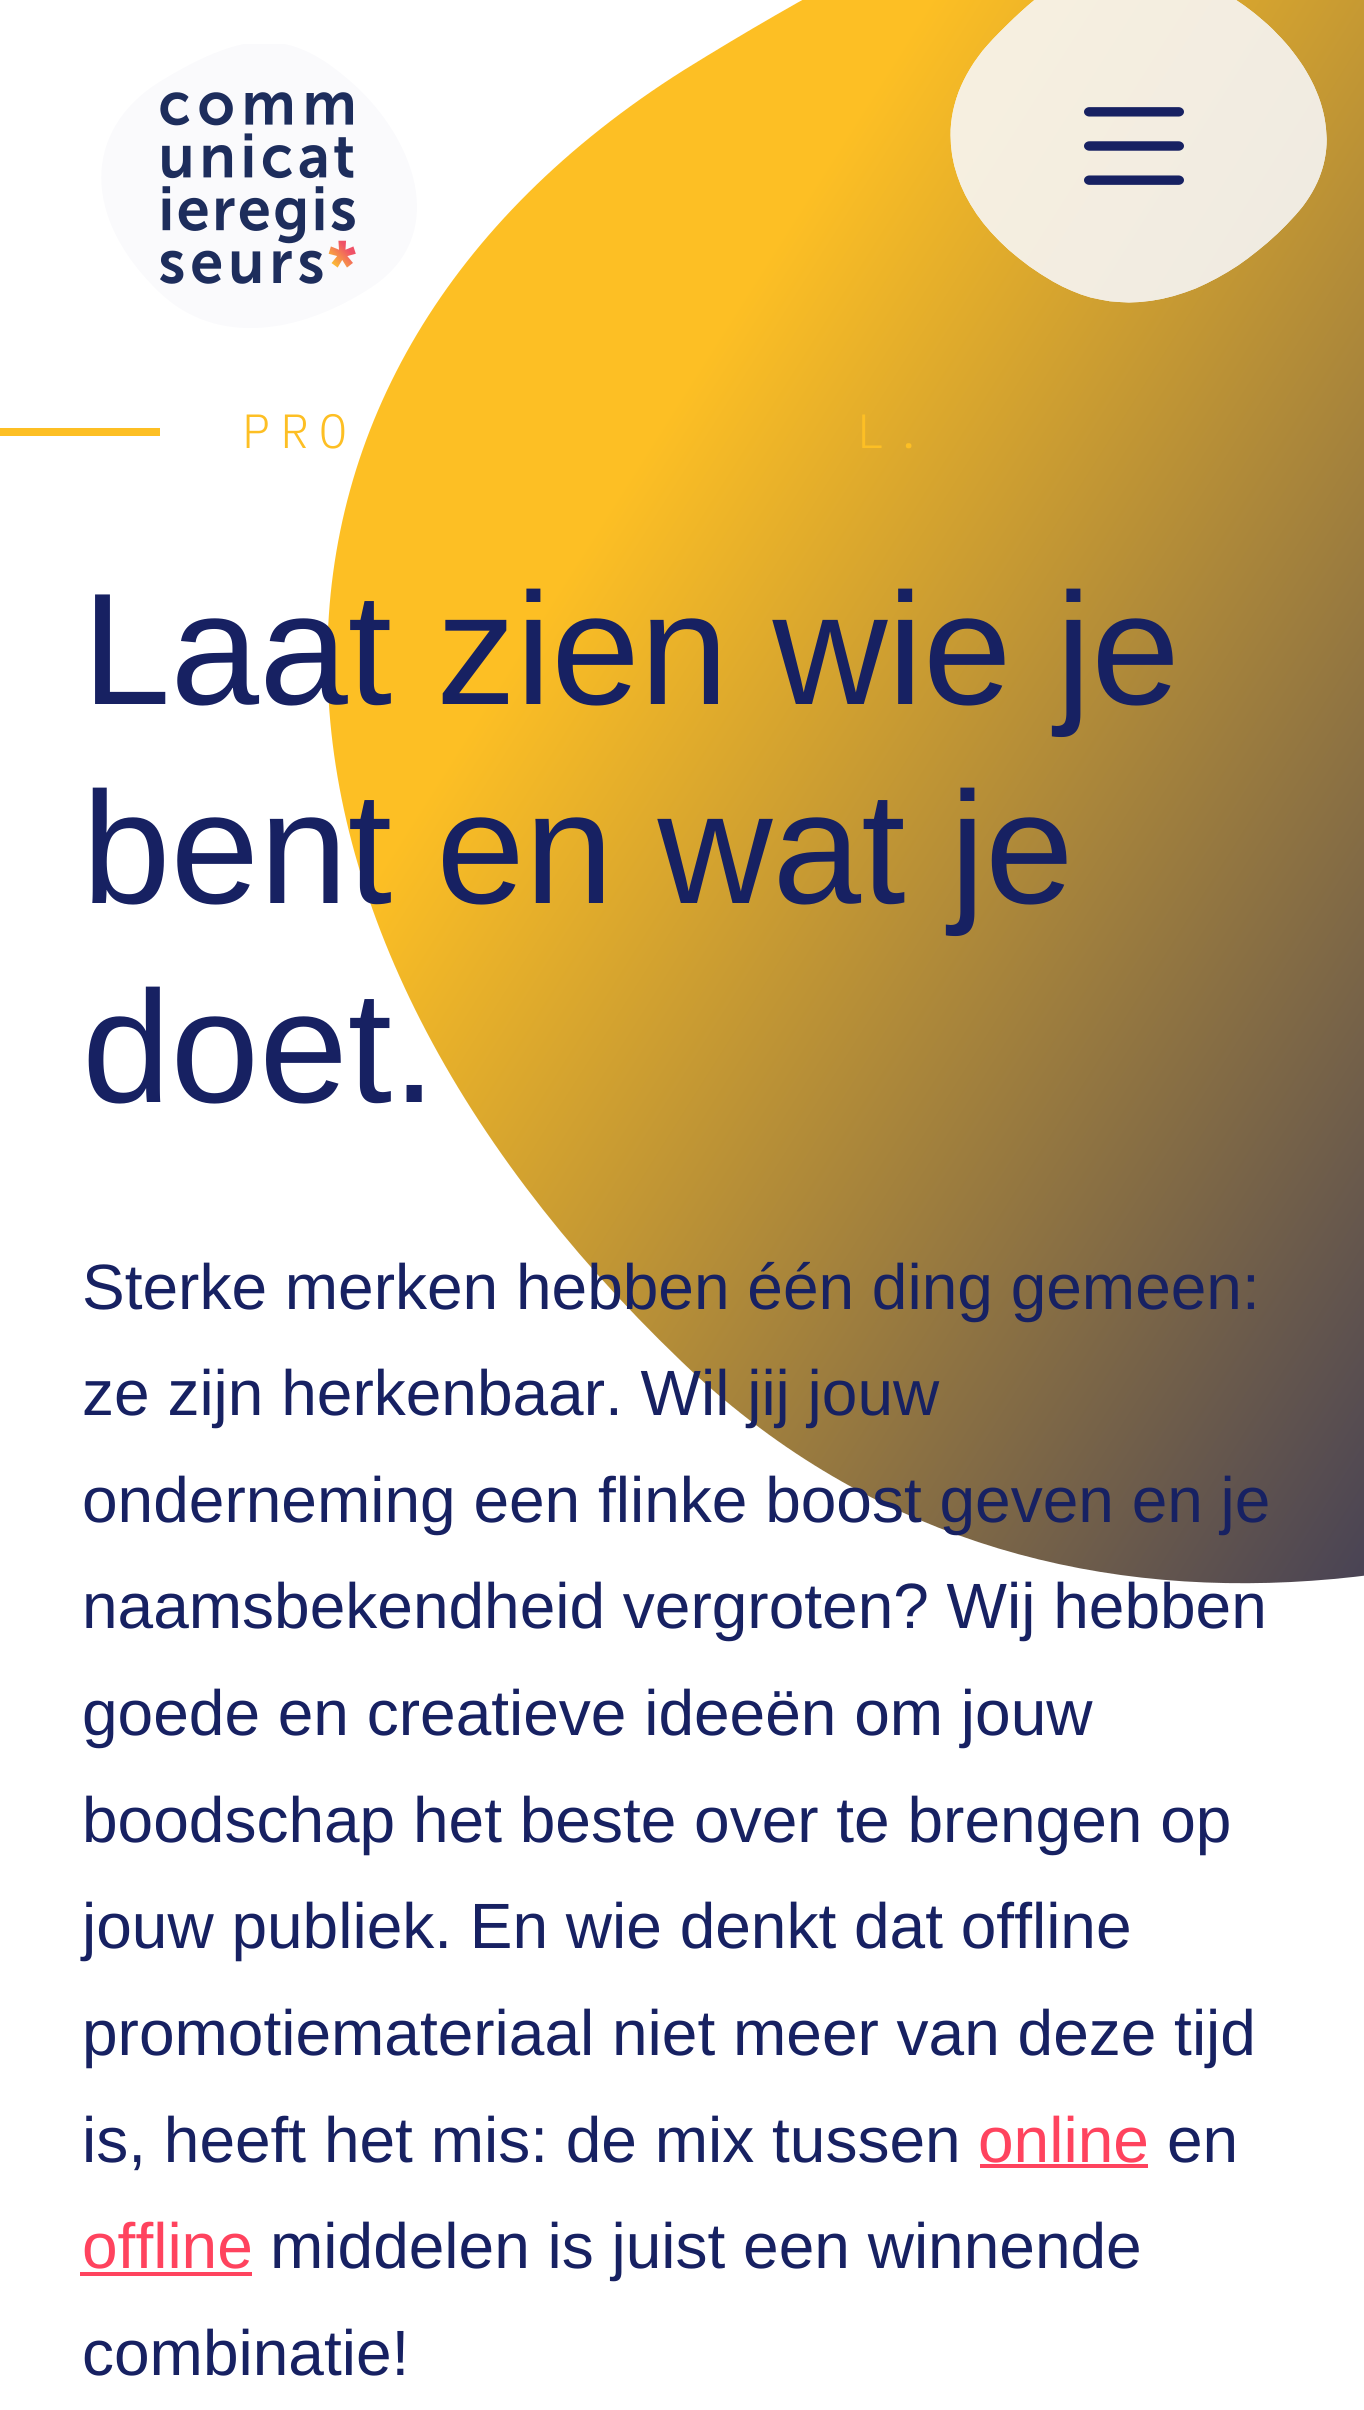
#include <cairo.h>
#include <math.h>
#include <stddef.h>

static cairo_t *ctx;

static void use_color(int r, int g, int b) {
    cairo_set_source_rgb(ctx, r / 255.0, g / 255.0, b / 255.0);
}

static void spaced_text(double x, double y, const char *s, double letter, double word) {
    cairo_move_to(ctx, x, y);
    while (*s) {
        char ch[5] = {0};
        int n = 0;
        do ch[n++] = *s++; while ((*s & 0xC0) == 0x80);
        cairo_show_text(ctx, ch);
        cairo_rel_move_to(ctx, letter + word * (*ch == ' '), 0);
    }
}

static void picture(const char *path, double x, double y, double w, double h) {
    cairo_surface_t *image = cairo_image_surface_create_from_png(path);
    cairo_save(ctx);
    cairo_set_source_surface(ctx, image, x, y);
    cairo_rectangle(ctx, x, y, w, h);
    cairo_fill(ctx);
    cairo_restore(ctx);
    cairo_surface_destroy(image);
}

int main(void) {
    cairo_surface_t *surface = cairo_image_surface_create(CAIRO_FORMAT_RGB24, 1364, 2410);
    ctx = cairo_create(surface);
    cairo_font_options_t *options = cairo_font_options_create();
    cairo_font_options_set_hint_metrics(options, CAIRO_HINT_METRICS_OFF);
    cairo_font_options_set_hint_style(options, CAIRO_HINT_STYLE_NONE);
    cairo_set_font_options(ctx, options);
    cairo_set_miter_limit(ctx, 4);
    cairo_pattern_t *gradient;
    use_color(255, 255, 255);
    cairo_paint(ctx);
    gradient = cairo_pattern_create_linear(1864, 1415, 558, 588);
    cairo_pattern_add_color_stop_rgba(gradient, 0, 0.09, 0.129, 0.384, 1);
    cairo_pattern_add_color_stop_rgba(gradient, 1, 0.992, 0.749, 0.141, 1);
    cairo_set_source(ctx, gradient);
    cairo_pattern_destroy(gradient);
    cairo_new_path(ctx);
    cairo_move_to(ctx, 1293, -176);
    cairo_curve_to(ctx, 1127, -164, 934, -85, 684, 70);
    cairo_curve_to(ctx, 210, 369, 208, 907, 681, 1361);
    cairo_curve_to(ctx, 1042, 1708, 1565, 1611, 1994, 1328);
    cairo_curve_to(ctx, 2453, 1024, 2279, 466, 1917, 119);
    cairo_curve_to(ctx, 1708, -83, 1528, -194, 1298, -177);
    cairo_line_to(ctx, 1293, -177);
    cairo_close_path(ctx);
    cairo_fill(ctx);
    cairo_save(ctx);
    cairo_rectangle(ctx, 92, 44, 336, 288);
    cairo_clip(ctx);
    use_color(250, 250, 252);
    cairo_new_path(ctx);
    cairo_move_to(ctx, 258, 42);
    cairo_curve_to(ctx, 231, 44, 200, 57, 159, 82);
    cairo_curve_to(ctx, 82, 131, 82, 218, 159, 292);
    cairo_curve_to(ctx, 217, 348, 302, 333, 372, 287);
    cairo_curve_to(ctx, 447, 237, 418, 147, 360, 90);
    cairo_curve_to(ctx, 326, 58, 296, 40, 259, 42);
    cairo_close_path(ctx);
    cairo_fill(ctx);
    cairo_restore(ctx);
    picture("img1.png", 160, 92, 196, 192);
    picture("img2.png", 950, 0, 377, 303);
    picture("img3.png", 1084, 107, 100, 78);
    use_color(253, 191, 36);
    cairo_rectangle(ctx, 0, 428, 160, 8);
    cairo_fill(ctx);
    cairo_select_font_face(ctx, "IBM Plex Mono Light", CAIRO_FONT_SLANT_NORMAL, CAIRO_FONT_WEIGHT_NORMAL);
    cairo_set_font_size(ctx, 48);
    spaced_text(242, 448, "PRO", 9.5, 0);
    spaced_text(856, 448, "L.", 9.5, 0);
    cairo_select_font_face(ctx, "Liberation Sans", CAIRO_FONT_SLANT_NORMAL, CAIRO_FONT_WEIGHT_NORMAL);
    cairo_set_font_size(ctx, 159.25);
    use_color(23, 33, 98);
    cairo_move_to(ctx, 82, 704);
    cairo_show_text(ctx, "Laat zien wie je");
    cairo_move_to(ctx, 82, 903);
    cairo_show_text(ctx, "bent en wat je");
    cairo_move_to(ctx, 82, 1102);
    cairo_show_text(ctx, "doet.");
    cairo_set_font_size(ctx, 64);
    cairo_move_to(ctx, 82, 1309);
    cairo_show_text(ctx, "Sterke merken hebben één ding gemeen:");
    cairo_move_to(ctx, 82, 1415);
    cairo_show_text(ctx, "ze zijn herkenbaar. Wil jij jouw");
    cairo_move_to(ctx, 82, 1522);
    cairo_show_text(ctx, "onderneming een flinke boost geven en je");
    cairo_move_to(ctx, 82, 1628);
    cairo_show_text(ctx, "naamsbekendheid vergroten? Wij hebben");
    cairo_move_to(ctx, 82, 1735);
    cairo_show_text(ctx, "goede en creatieve ideeën om jouw");
    cairo_move_to(ctx, 82, 1842);
    cairo_show_text(ctx, "boodschap het beste over te brengen op");
    cairo_move_to(ctx, 82, 1948);
    cairo_show_text(ctx, "jouw publiek. En wie denkt dat offline");
    cairo_move_to(ctx, 82, 2055);
    cairo_show_text(ctx, "promotiemateriaal niet meer van deze tijd");
    cairo_move_to(ctx, 82, 2162);
    cairo_show_text(ctx, "is, heeft het mis: de mix tussen");
    use_color(255, 67, 94);
    cairo_move_to(ctx, 978, 2162);
    cairo_show_text(ctx, "online");
    cairo_rectangle(ctx, 980, 2164, 168, 4);
    cairo_fill(ctx);
    use_color(23, 33, 98);
    cairo_move_to(ctx, 1167, 2162);
    cairo_show_text(ctx, "en");
    use_color(255, 67, 94);
    cairo_move_to(ctx, 82, 2268);
    cairo_show_text(ctx, "offline");
    cairo_rectangle(ctx, 80, 2272, 172, 4);
    cairo_fill(ctx);
    use_color(23, 33, 98);
    cairo_move_to(ctx, 270, 2268);
    cairo_show_text(ctx, "middelen is juist een winnende");
    cairo_move_to(ctx, 82, 2375);
    cairo_show_text(ctx, "combinatie!");
    cairo_surface_write_to_png(surface, "result.png");
    cairo_font_options_destroy(options);
    cairo_destroy(ctx);
    cairo_surface_destroy(surface);
    return 0;
}
